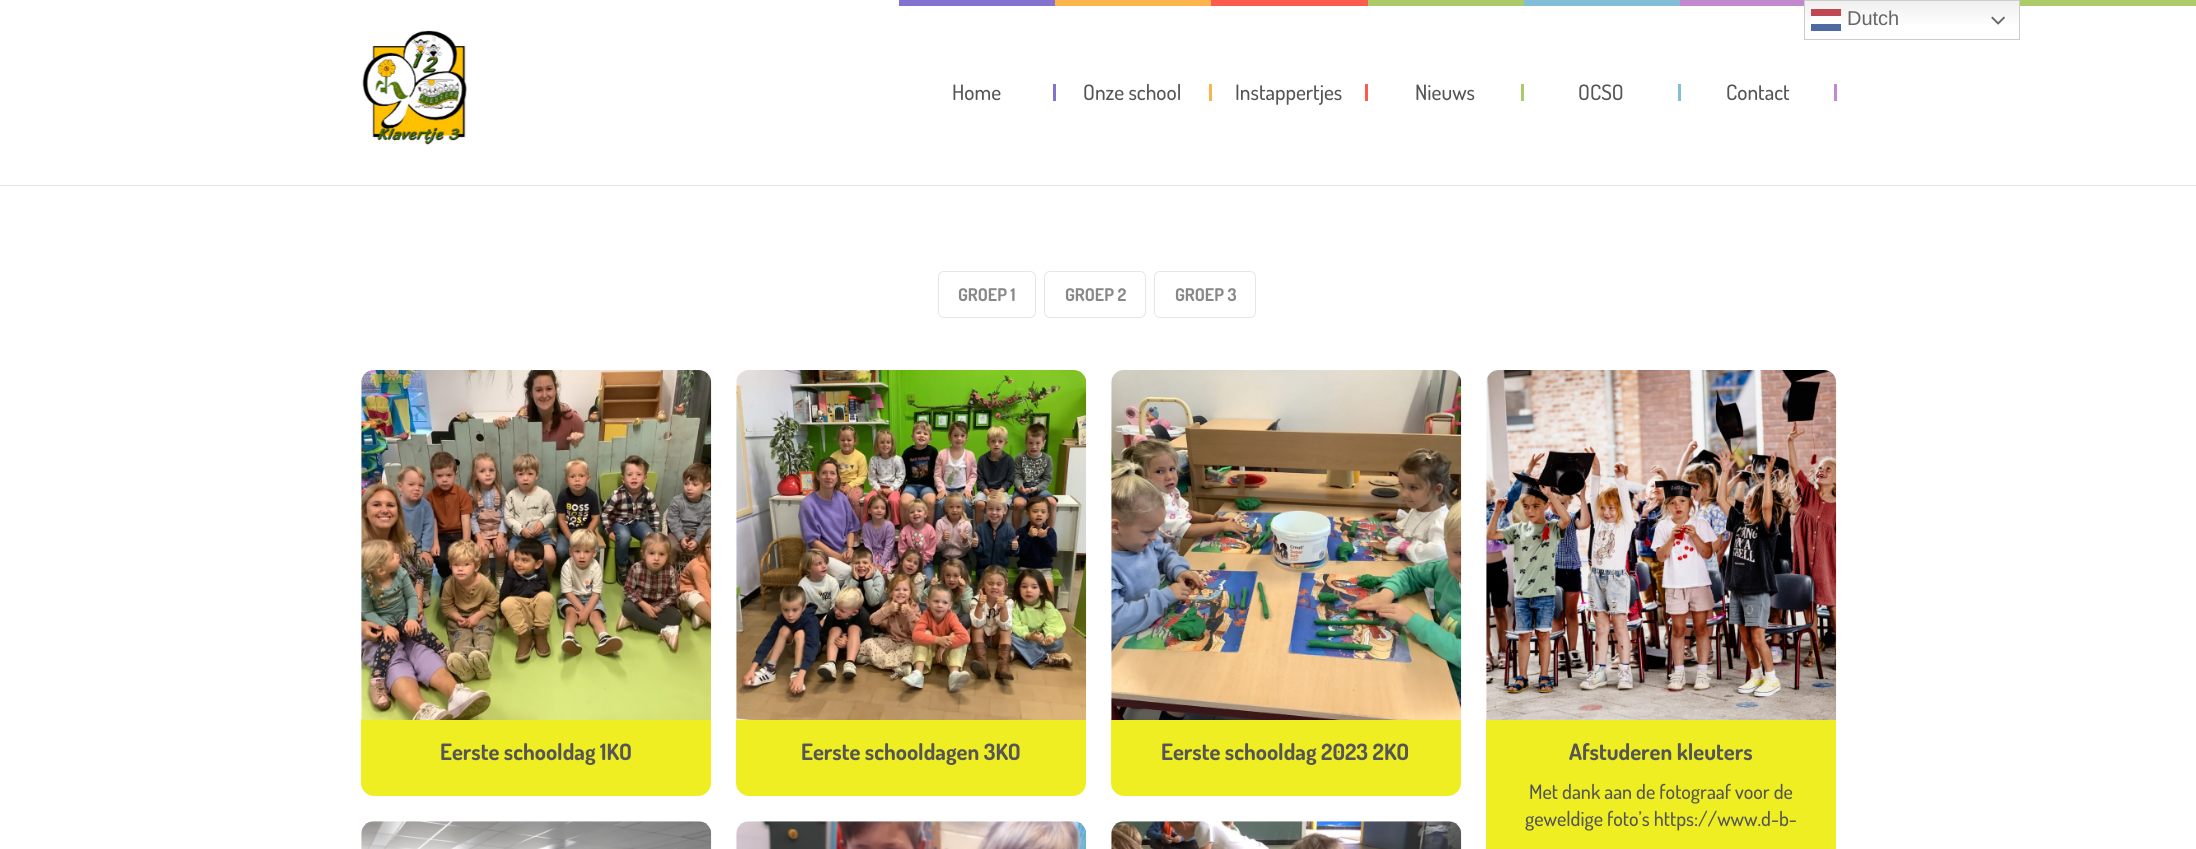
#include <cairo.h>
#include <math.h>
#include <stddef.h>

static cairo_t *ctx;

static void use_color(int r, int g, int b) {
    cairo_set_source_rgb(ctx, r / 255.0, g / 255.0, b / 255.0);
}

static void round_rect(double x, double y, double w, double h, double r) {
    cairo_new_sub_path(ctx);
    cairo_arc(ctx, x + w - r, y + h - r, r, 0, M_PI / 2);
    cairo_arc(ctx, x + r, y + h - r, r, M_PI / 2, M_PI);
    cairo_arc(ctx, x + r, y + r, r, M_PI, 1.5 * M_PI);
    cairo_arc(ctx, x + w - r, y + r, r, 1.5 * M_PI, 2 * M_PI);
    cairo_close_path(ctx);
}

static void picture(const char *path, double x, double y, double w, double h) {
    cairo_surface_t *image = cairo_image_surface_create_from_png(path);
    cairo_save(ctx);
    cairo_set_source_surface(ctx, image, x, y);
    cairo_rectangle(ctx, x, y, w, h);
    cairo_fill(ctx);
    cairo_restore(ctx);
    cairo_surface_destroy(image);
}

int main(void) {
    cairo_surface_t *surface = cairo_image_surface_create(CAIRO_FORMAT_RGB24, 2196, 849);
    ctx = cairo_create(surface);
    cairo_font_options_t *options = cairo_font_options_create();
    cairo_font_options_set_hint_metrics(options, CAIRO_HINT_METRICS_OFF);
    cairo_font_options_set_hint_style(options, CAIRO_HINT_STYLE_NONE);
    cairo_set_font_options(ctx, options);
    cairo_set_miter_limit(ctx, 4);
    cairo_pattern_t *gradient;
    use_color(255, 255, 255);
    cairo_paint(ctx);
    gradient = cairo_pattern_create_linear(1912, 0, 1912, 40);
    cairo_pattern_add_color_stop_rgba(gradient, 0, 0.937, 0.937, 0.937, 1);
    cairo_pattern_add_color_stop_rgba(gradient, 0.7, 1, 1, 1, 1);
    cairo_set_source(ctx, gradient);
    cairo_pattern_destroy(gradient);
    cairo_rectangle(ctx, 1805, 1, 214, 23);
    cairo_fill(ctx);
    gradient = cairo_pattern_create_linear(1912, 0, 1912, 40);
    cairo_pattern_add_color_stop_rgba(gradient, 0, 0.988, 0.988, 0.988, 1);
    cairo_pattern_add_color_stop_rgba(gradient, 0.7, 1, 1, 1, 1);
    cairo_set_source(ctx, gradient);
    cairo_pattern_destroy(gradient);
    cairo_rectangle(ctx, 1811, 16, 30, 8);
    cairo_fill(ctx);
    cairo_rectangle(ctx, 1804.5, 0.5, 215, 39);
    use_color(204, 204, 204);
    cairo_set_line_width(ctx, 1);
    cairo_stroke(ctx);
    use_color(190, 73, 83);
    cairo_rectangle(ctx, 1811, 9, 30, 7);
    cairo_fill(ctx);
    cairo_select_font_face(ctx, "Liberation Sans", CAIRO_FONT_SLANT_NORMAL, CAIRO_FONT_WEIGHT_NORMAL);
    cairo_set_font_size(ctx, 20);
    use_color(102, 102, 102);
    cairo_move_to(ctx, 1847, 25);
    cairo_show_text(ctx, "Dutch");
    picture("img1.png", 1991, 16, 14, 9);
    use_color(77, 107, 162);
    cairo_rectangle(ctx, 1811, 24, 30, 7);
    cairo_fill(ctx);
    use_color(230, 230, 230);
    cairo_rectangle(ctx, 0, 185, 2196, 1);
    cairo_fill(ctx);
    use_color(173, 203, 105);
    cairo_rectangle(ctx, 2020, 0, 176, 6);
    cairo_fill(ctx);
    picture("img2.png", 362, 30, 105, 115);
    use_color(131, 115, 206);
    cairo_rectangle(ctx, 899, 0, 156, 6);
    cairo_fill(ctx);
    cairo_select_font_face(ctx, "Dosis Medium", CAIRO_FONT_SLANT_NORMAL, CAIRO_FONT_WEIGHT_NORMAL);
    cairo_set_font_size(ctx, 21.25);
    use_color(85, 85, 85);
    cairo_move_to(ctx, 952, 100);
    cairo_show_text(ctx, "Home");
    use_color(131, 115, 206);
    cairo_rectangle(ctx, 1053, 84, 3, 17);
    cairo_fill(ctx);
    use_color(252, 181, 77);
    cairo_rectangle(ctx, 1055, 0, 156, 6);
    cairo_fill(ctx);
    use_color(85, 85, 85);
    cairo_move_to(ctx, 1083, 100);
    cairo_show_text(ctx, "Onze school");
    use_color(252, 181, 77);
    cairo_rectangle(ctx, 1209, 84, 3, 17);
    cairo_fill(ctx);
    use_color(252, 91, 78);
    cairo_rectangle(ctx, 1211, 0, 157, 6);
    cairo_fill(ctx);
    use_color(85, 85, 85);
    cairo_move_to(ctx, 1235, 100);
    cairo_show_text(ctx, "Instappertjes");
    use_color(252, 91, 78);
    cairo_rectangle(ctx, 1365, 84, 3, 17);
    cairo_fill(ctx);
    use_color(173, 202, 105);
    cairo_rectangle(ctx, 1368, 0, 156, 6);
    cairo_fill(ctx);
    use_color(85, 85, 85);
    cairo_move_to(ctx, 1415, 100);
    cairo_show_text(ctx, "Nieuws");
    use_color(173, 202, 105);
    cairo_rectangle(ctx, 1521, 84, 3, 17);
    cairo_fill(ctx);
    use_color(132, 190, 214);
    cairo_rectangle(ctx, 1524, 0, 156, 6);
    cairo_fill(ctx);
    use_color(85, 85, 85);
    cairo_move_to(ctx, 1578, 100);
    cairo_show_text(ctx, "OCSO");
    use_color(132, 190, 214);
    cairo_rectangle(ctx, 1678, 84, 3, 17);
    cairo_fill(ctx);
    use_color(195, 137, 206);
    cairo_rectangle(ctx, 1680, 0, 124, 6);
    cairo_fill(ctx);
    use_color(85, 85, 85);
    cairo_move_to(ctx, 1726, 100);
    cairo_show_text(ctx, "Contact");
    use_color(195, 137, 206);
    cairo_rectangle(ctx, 1834, 84, 3, 17);
    cairo_fill(ctx);
    round_rect(938.5, 271.5, 97, 46, 5.5);
    use_color(230, 230, 230);
    cairo_stroke(ctx);
    cairo_select_font_face(ctx, "Dosis", CAIRO_FONT_SLANT_NORMAL, CAIRO_FONT_WEIGHT_BOLD);
    cairo_set_font_size(ctx, 17.5);
    use_color(136, 136, 136);
    cairo_move_to(ctx, 958, 301);
    cairo_show_text(ctx, "GROEP 1");
    round_rect(1044.5, 271.5, 101, 46, 5.5);
    use_color(230, 230, 230);
    cairo_stroke(ctx);
    use_color(136, 136, 136);
    cairo_move_to(ctx, 1065, 301);
    cairo_show_text(ctx, "GROEP 2");
    round_rect(1154.5, 271.5, 101, 46, 5.5);
    use_color(230, 230, 230);
    cairo_stroke(ctx);
    use_color(136, 136, 136);
    cairo_move_to(ctx, 1175, 301);
    cairo_show_text(ctx, "GROEP 3");
    use_color(238, 238, 34);
    cairo_new_path(ctx);
    cairo_move_to(ctx, 361, 719);
    cairo_line_to(ctx, 711, 719);
    cairo_line_to(ctx, 711, 783);
    cairo_curve_to(ctx, 711, 790, 705, 796, 698, 796);
    cairo_line_to(ctx, 374, 796);
    cairo_curve_to(ctx, 367, 796, 361, 790, 361, 783);
    cairo_close_path(ctx);
    cairo_fill(ctx);
    picture("img3.png", 361, 370, 351, 350);
    cairo_set_font_size(ctx, 22.5);
    use_color(85, 85, 85);
    cairo_move_to(ctx, 440, 760);
    cairo_show_text(ctx, "Eerste schooldag 1KO");
    use_color(238, 238, 34);
    cairo_new_path(ctx);
    cairo_move_to(ctx, 736, 719);
    cairo_line_to(ctx, 1086, 719);
    cairo_line_to(ctx, 1086, 783);
    cairo_curve_to(ctx, 1086, 790, 1080, 796, 1073, 796);
    cairo_line_to(ctx, 749, 796);
    cairo_curve_to(ctx, 742, 796, 736, 790, 736, 783);
    cairo_close_path(ctx);
    cairo_fill(ctx);
    picture("img4.png", 736, 370, 351, 350);
    use_color(85, 85, 85);
    cairo_move_to(ctx, 801, 760);
    cairo_show_text(ctx, "Eerste schooldagen 3KO");
    use_color(238, 238, 34);
    cairo_new_path(ctx);
    cairo_move_to(ctx, 1111, 719);
    cairo_line_to(ctx, 1461, 719);
    cairo_line_to(ctx, 1461, 783);
    cairo_curve_to(ctx, 1461, 790, 1455, 796, 1448, 796);
    cairo_line_to(ctx, 1124, 796);
    cairo_curve_to(ctx, 1117, 796, 1111, 790, 1111, 783);
    cairo_close_path(ctx);
    cairo_fill(ctx);
    picture("img5.png", 1111, 370, 351, 350);
    use_color(85, 85, 85);
    cairo_move_to(ctx, 1161, 760);
    cairo_show_text(ctx, "Eerste schooldag 2023 2KO");
    use_color(238, 238, 34);
    cairo_rectangle(ctx, 1486, 719, 350, 130);
    cairo_fill(ctx);
    picture("img6.png", 1486, 370, 351, 350);
    use_color(85, 85, 85);
    cairo_move_to(ctx, 1569, 760);
    cairo_show_text(ctx, "Afstuderen kleuters");
    cairo_select_font_face(ctx, "Dosis Medium", CAIRO_FONT_SLANT_NORMAL, CAIRO_FONT_WEIGHT_NORMAL);
    cairo_set_font_size(ctx, 20);
    cairo_move_to(ctx, 1529, 799);
    cairo_show_text(ctx, "Met dank aan de fotograaf voor de");
    cairo_move_to(ctx, 1525, 826);
    cairo_show_text(ctx, "geweldige foto’s https://www.d-b-");
    picture("img7.png", 361, 821, 351, 28);
    picture("img8.png", 736, 821, 351, 28);
    picture("img9.png", 1111, 821, 351, 28);
    cairo_surface_write_to_png(surface, "result.png");
    cairo_font_options_destroy(options);
    cairo_destroy(ctx);
    cairo_surface_destroy(surface);
    return 0;
}
